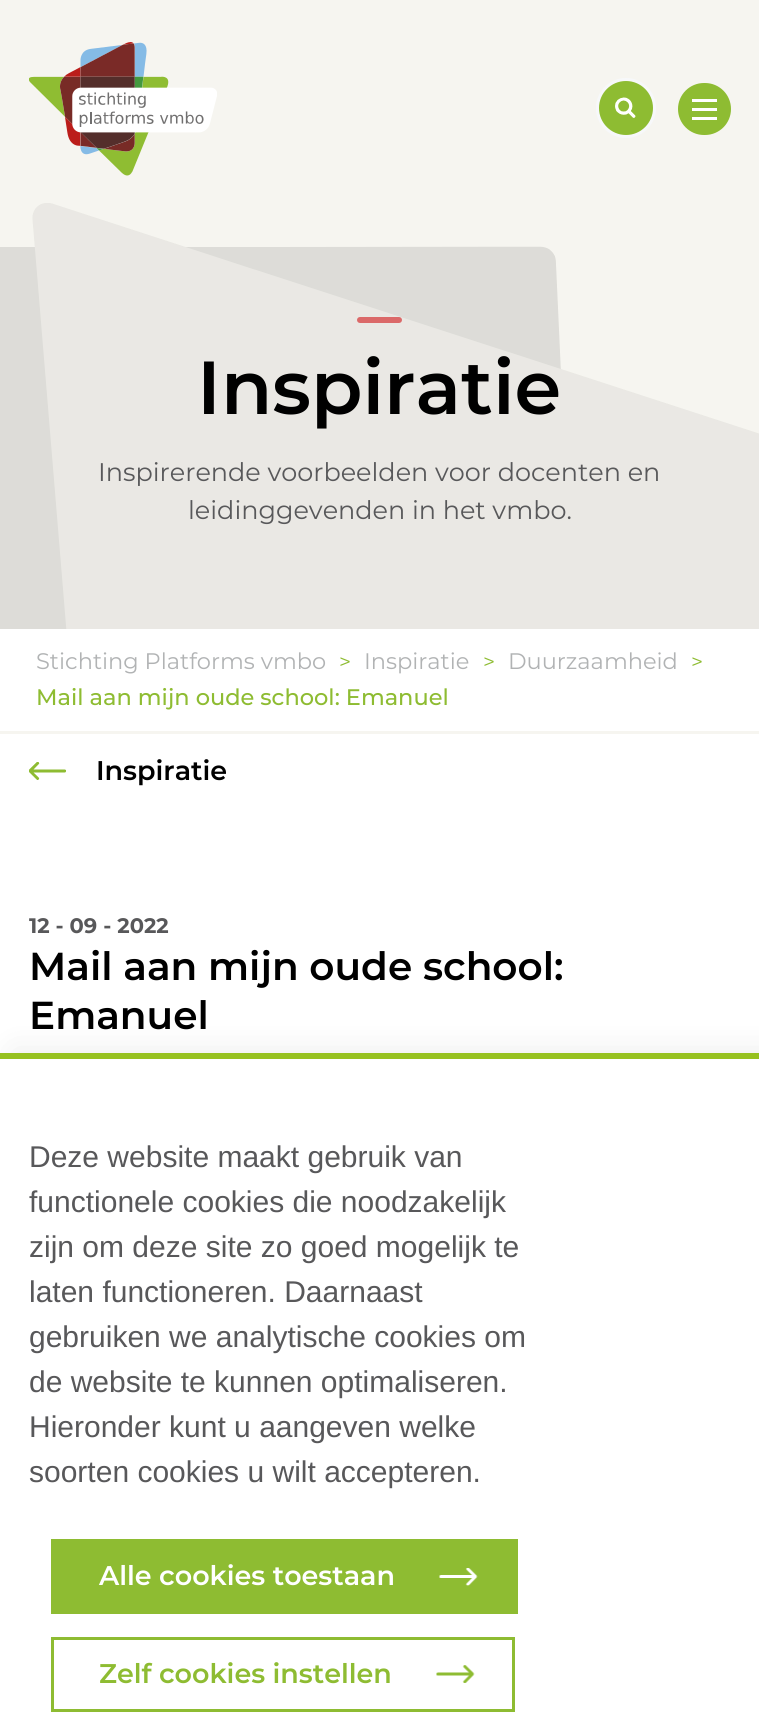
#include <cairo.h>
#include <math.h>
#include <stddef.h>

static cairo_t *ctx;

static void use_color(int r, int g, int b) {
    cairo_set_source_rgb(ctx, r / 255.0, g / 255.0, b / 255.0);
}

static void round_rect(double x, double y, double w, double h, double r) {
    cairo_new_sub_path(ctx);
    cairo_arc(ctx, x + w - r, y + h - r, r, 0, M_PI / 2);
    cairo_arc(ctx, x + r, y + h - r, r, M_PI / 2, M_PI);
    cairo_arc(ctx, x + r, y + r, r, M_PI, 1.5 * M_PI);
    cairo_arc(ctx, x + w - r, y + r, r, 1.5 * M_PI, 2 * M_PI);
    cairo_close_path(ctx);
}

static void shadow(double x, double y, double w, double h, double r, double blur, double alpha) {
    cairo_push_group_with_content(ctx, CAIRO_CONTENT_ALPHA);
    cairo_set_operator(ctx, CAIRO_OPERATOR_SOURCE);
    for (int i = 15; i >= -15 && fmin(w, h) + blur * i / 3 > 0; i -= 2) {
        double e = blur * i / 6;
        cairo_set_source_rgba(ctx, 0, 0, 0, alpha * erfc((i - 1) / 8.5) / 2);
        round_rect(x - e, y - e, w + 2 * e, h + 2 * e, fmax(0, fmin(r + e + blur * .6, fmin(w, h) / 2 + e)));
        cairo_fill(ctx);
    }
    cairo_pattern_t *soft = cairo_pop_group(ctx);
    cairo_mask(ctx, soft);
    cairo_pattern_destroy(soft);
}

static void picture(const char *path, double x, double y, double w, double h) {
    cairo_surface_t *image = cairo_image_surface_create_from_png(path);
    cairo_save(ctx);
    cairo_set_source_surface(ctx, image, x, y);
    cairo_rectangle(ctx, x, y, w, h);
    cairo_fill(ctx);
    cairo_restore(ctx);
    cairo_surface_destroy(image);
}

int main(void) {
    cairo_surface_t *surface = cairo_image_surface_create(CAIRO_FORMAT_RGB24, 759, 1730);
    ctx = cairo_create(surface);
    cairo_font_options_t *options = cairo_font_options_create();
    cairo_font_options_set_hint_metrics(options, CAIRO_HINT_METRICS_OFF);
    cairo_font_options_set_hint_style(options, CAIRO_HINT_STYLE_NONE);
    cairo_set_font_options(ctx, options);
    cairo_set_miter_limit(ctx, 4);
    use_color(255, 255, 255);
    cairo_paint(ctx);
    use_color(246, 245, 240);
    cairo_rectangle(ctx, 0, 0, 759, 629);
    cairo_fill(ctx);
    picture("img1.png", 29, 42, 188, 134);
    use_color(142, 188, 50);
    cairo_arc(ctx, 626, 108, 28.5, 0, 2 * M_PI);
    cairo_fill_preserve(ctx);
    use_color(247, 248, 250);
    cairo_set_line_width(ctx, 3);
    cairo_stroke(ctx);
    picture("img2.png", 615, 97, 21, 21);
    use_color(142, 188, 50);
    round_rect(678, 83, 53, 52, 26);
    cairo_fill(ctx);
    use_color(255, 255, 255);
    cairo_rectangle(ctx, 692, 99, 25, 3);
    cairo_fill(ctx);
    cairo_rectangle(ctx, 692, 108, 25, 3);
    cairo_fill(ctx);
    cairo_rectangle(ctx, 692, 117, 25, 3);
    cairo_fill(ctx);
    picture("img3.png", 0, 203, 759, 426);
    use_color(219, 105, 105);
    round_rect(357, 317, 45, 6, 3);
    cairo_fill(ctx);
    cairo_select_font_face(ctx, "Montserrat SemiBold", CAIRO_FONT_SLANT_NORMAL, CAIRO_FONT_WEIGHT_NORMAL);
    cairo_set_font_size(ctx, 75);
    use_color(0, 0, 0);
    cairo_move_to(ctx, 197, 414);
    cairo_show_text(ctx, "Inspiratie");
    cairo_select_font_face(ctx, "Montserrat", CAIRO_FONT_SLANT_NORMAL, CAIRO_FONT_WEIGHT_NORMAL);
    cairo_set_font_size(ctx, 25.5);
    use_color(88, 88, 90);
    cairo_move_to(ctx, 98, 481);
    cairo_show_text(ctx, "Inspirerende voorbeelden voor docenten en");
    cairo_move_to(ctx, 188, 519);
    cairo_show_text(ctx, "leidinggevenden in het vmbo.");
    use_color(246, 245, 240);
    cairo_rectangle(ctx, 0, 731, 759, 3);
    cairo_fill(ctx);
    cairo_set_font_size(ctx, 22.5);
    use_color(177, 179, 180);
    cairo_move_to(ctx, 36, 669);
    cairo_show_text(ctx, "Stichting Platforms vmbo");
    cairo_set_font_size(ctx, 21);
    use_color(142, 188, 50);
    cairo_move_to(ctx, 339, 669);
    cairo_show_text(ctx, ">");
    cairo_set_font_size(ctx, 22.5);
    use_color(177, 179, 180);
    cairo_move_to(ctx, 364, 669);
    cairo_show_text(ctx, "Inspiratie");
    cairo_set_font_size(ctx, 21);
    use_color(142, 188, 50);
    cairo_move_to(ctx, 483, 669);
    cairo_show_text(ctx, ">");
    cairo_set_font_size(ctx, 22.5);
    use_color(177, 179, 180);
    cairo_move_to(ctx, 508, 669);
    cairo_show_text(ctx, "Duurzaamheid");
    cairo_set_font_size(ctx, 21);
    use_color(142, 188, 50);
    cairo_move_to(ctx, 691, 669);
    cairo_show_text(ctx, ">");
    cairo_select_font_face(ctx, "Montserrat Medium", CAIRO_FONT_SLANT_NORMAL, CAIRO_FONT_WEIGHT_NORMAL);
    cairo_set_font_size(ctx, 22.5);
    cairo_move_to(ctx, 36, 705);
    cairo_show_text(ctx, "Mail aan mijn oude school: Emanuel");
    picture("img4.png", 29, 762, 37, 18);
    cairo_select_font_face(ctx, "Montserrat SemiBold", CAIRO_FONT_SLANT_NORMAL, CAIRO_FONT_WEIGHT_NORMAL);
    cairo_set_font_size(ctx, 27);
    use_color(0, 0, 0);
    cairo_move_to(ctx, 96, 780);
    cairo_show_text(ctx, "Inspiratie");
    cairo_select_font_face(ctx, "Montserrat", CAIRO_FONT_SLANT_NORMAL, CAIRO_FONT_WEIGHT_BOLD);
    cairo_set_font_size(ctx, 21);
    use_color(88, 88, 90);
    cairo_move_to(ctx, 29, 933);
    cairo_show_text(ctx, "12 - 09 - 2022");
    cairo_select_font_face(ctx, "Montserrat SemiBold", CAIRO_FONT_SLANT_NORMAL, CAIRO_FONT_WEIGHT_NORMAL);
    cairo_set_font_size(ctx, 39);
    use_color(0, 0, 0);
    cairo_move_to(ctx, 29, 980);
    cairo_show_text(ctx, "Mail aan mijn oude school:");
    cairo_move_to(ctx, 29, 1029);
    cairo_show_text(ctx, "Emanuel");
    use_color(26, 23, 27);
    shadow(15, 1053, 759, 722, 0, 15, 0.1);
    use_color(255, 255, 255);
    cairo_rectangle(ctx, 0, 1059, 759, 671);
    cairo_fill(ctx);
    use_color(150, 193, 31);
    cairo_rectangle(ctx, 0, 1053, 759, 6);
    cairo_fill(ctx);
    cairo_select_font_face(ctx, "Liberation Sans", CAIRO_FONT_SLANT_NORMAL, CAIRO_FONT_WEIGHT_NORMAL);
    cairo_set_font_size(ctx, 30);
    use_color(88, 88, 90);
    cairo_move_to(ctx, 29, 1167);
    cairo_show_text(ctx, "Deze website maakt gebruik van");
    cairo_move_to(ctx, 29, 1212);
    cairo_show_text(ctx, "functionele cookies die noodzakelijk");
    cairo_move_to(ctx, 29, 1257);
    cairo_show_text(ctx, "zijn om deze site zo goed mogelijk te");
    cairo_move_to(ctx, 29, 1302);
    cairo_show_text(ctx, "laten functioneren. Daarnaast");
    cairo_move_to(ctx, 29, 1347);
    cairo_show_text(ctx, "gebruiken we analytische cookies om");
    cairo_move_to(ctx, 29, 1392);
    cairo_show_text(ctx, "de website te kunnen optimaliseren.");
    cairo_move_to(ctx, 29, 1437);
    cairo_show_text(ctx, "Hieronder kunt u aangeven welke");
    cairo_move_to(ctx, 29, 1482);
    cairo_show_text(ctx, "soorten cookies u wilt accepteren.");
    use_color(142, 188, 50);
    cairo_rectangle(ctx, 51, 1539, 467, 75);
    cairo_fill(ctx);
    cairo_select_font_face(ctx, "Montserrat SemiBold", CAIRO_FONT_SLANT_NORMAL, CAIRO_FONT_WEIGHT_NORMAL);
    cairo_set_font_size(ctx, 27);
    use_color(255, 255, 255);
    cairo_move_to(ctx, 99, 1585);
    cairo_show_text(ctx, "Alle cookies toestaan");
    picture("img5.png", 439, 1568, 39, 18);
    cairo_rectangle(ctx, 52.5, 1638.5, 461, 72);
    use_color(142, 188, 50);
    cairo_stroke(ctx);
    cairo_move_to(ctx, 99, 1683);
    cairo_show_text(ctx, "Zelf cookies instellen");
    picture("img6.png", 436, 1665, 39, 18);
    cairo_surface_write_to_png(surface, "result.png");
    cairo_font_options_destroy(options);
    cairo_destroy(ctx);
    cairo_surface_destroy(surface);
    return 0;
}
